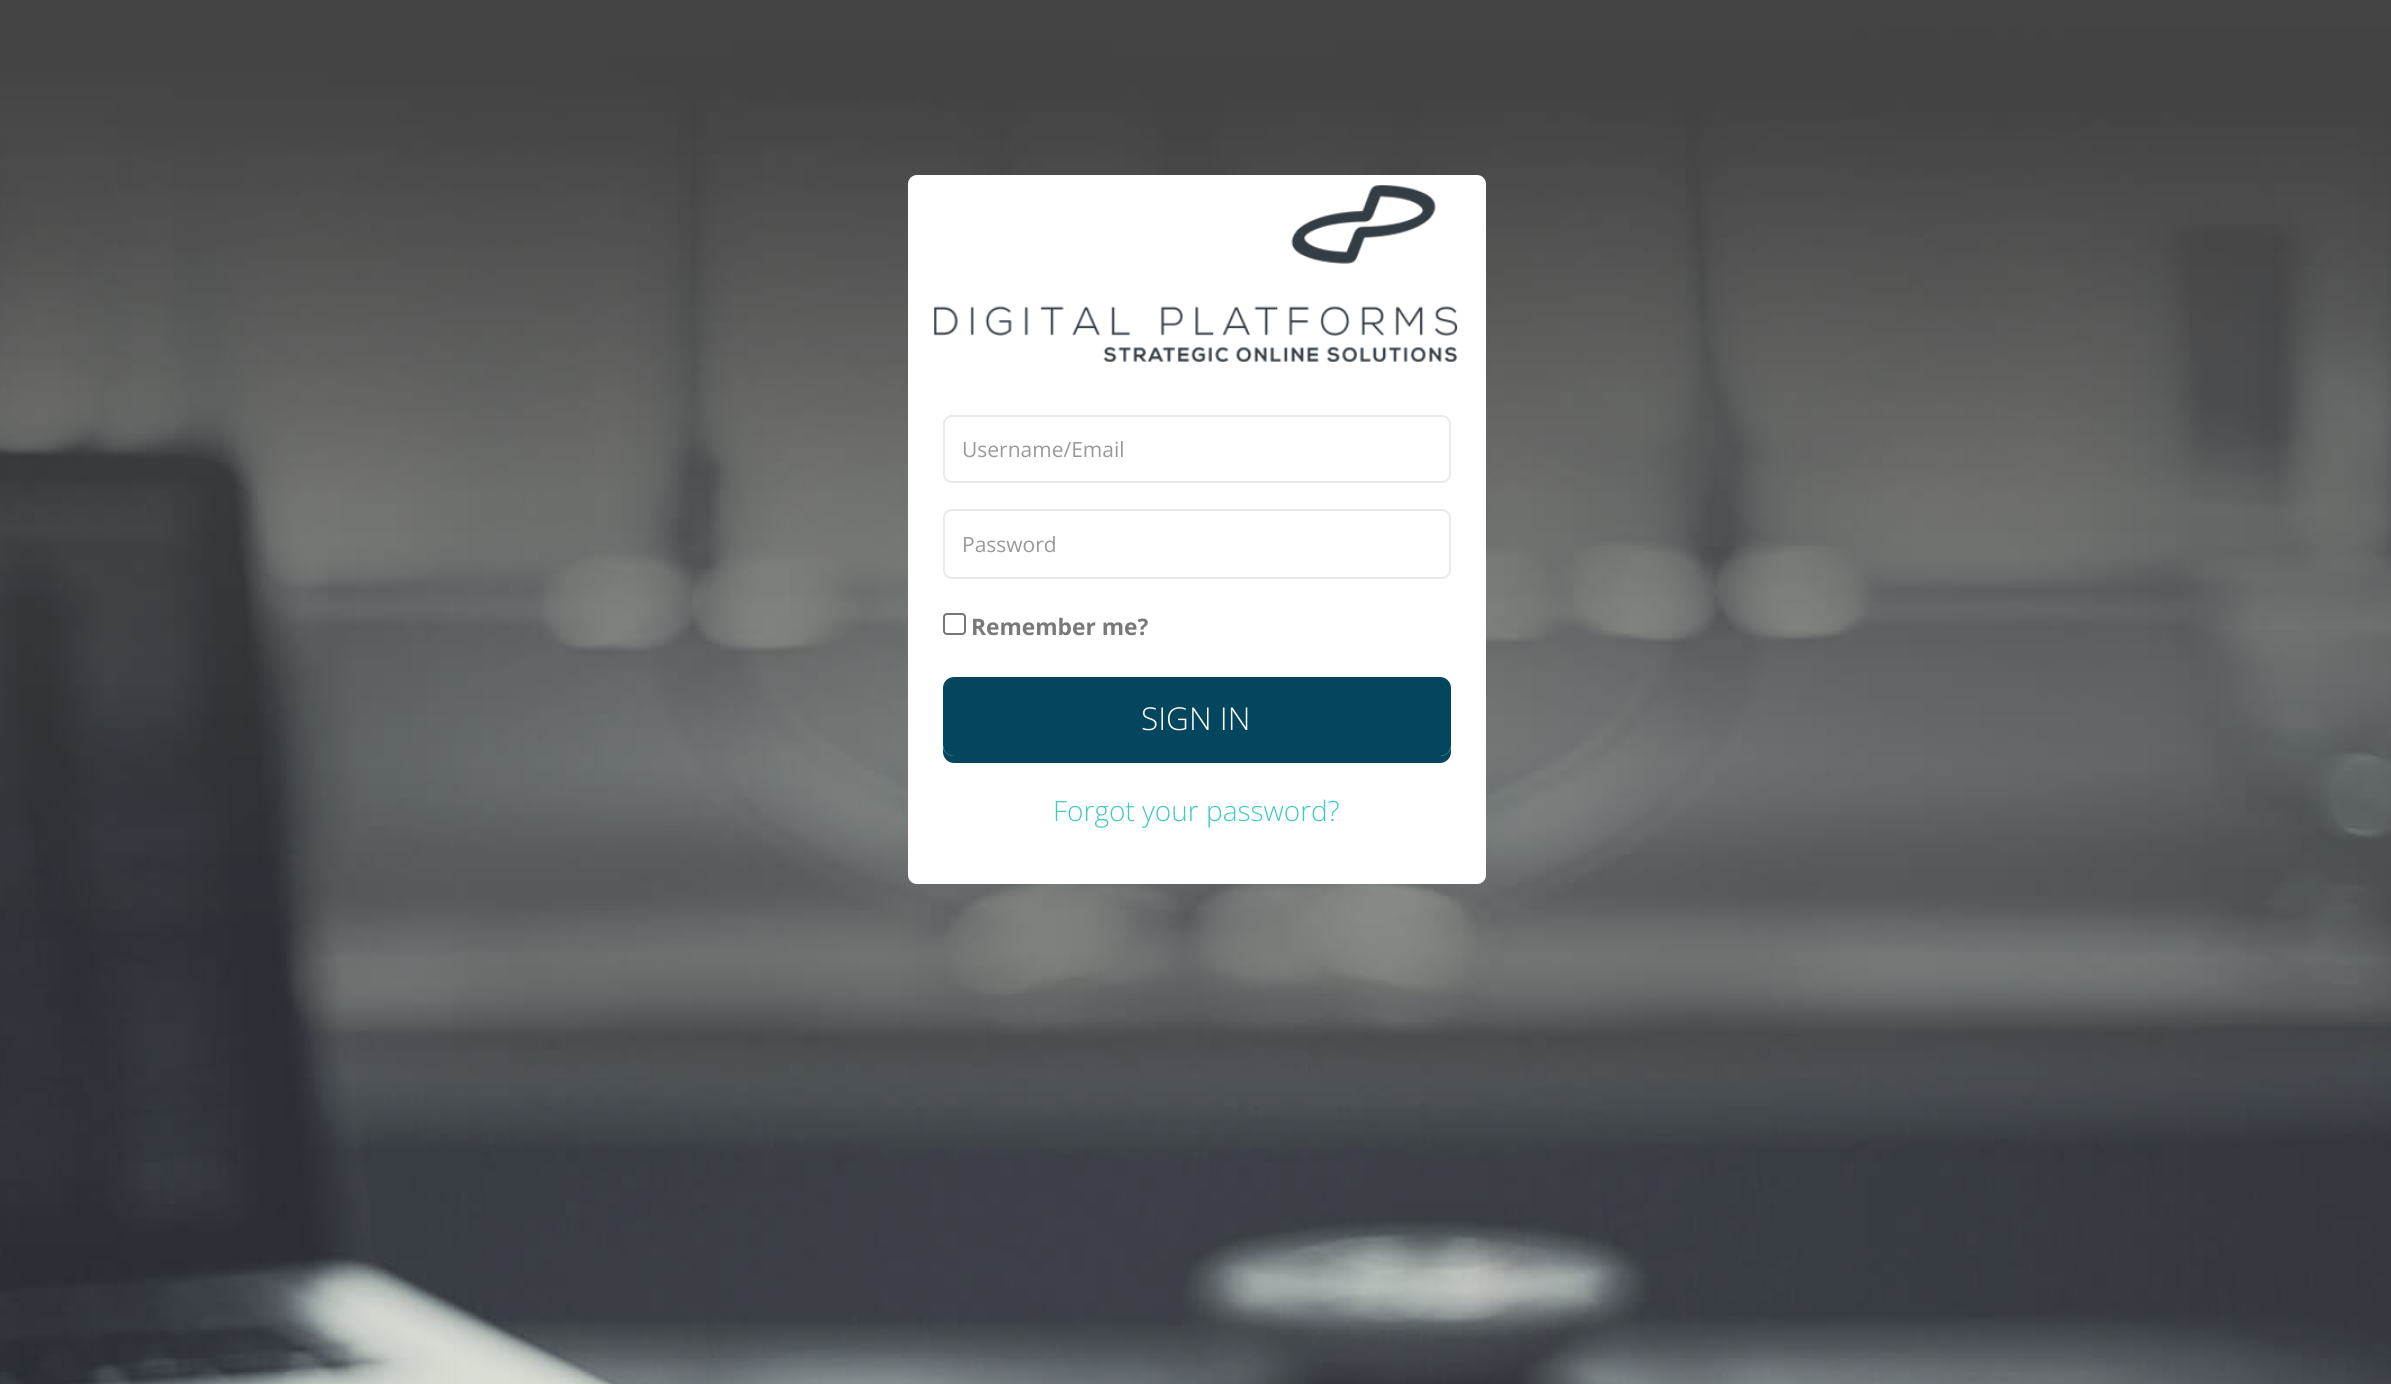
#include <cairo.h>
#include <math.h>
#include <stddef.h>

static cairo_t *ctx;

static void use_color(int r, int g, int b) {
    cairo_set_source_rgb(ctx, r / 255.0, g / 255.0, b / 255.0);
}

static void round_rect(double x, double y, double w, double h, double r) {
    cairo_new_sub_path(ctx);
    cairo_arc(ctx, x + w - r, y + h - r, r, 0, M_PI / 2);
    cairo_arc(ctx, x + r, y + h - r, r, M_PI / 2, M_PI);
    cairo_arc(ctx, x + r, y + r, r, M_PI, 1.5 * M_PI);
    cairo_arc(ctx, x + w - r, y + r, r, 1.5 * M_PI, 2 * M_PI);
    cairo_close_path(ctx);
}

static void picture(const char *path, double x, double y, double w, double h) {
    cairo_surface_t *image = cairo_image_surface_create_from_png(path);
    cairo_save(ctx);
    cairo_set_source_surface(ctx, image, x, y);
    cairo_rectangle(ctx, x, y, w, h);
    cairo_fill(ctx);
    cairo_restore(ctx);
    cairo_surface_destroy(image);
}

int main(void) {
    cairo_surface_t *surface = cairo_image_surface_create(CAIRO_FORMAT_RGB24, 2391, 1384);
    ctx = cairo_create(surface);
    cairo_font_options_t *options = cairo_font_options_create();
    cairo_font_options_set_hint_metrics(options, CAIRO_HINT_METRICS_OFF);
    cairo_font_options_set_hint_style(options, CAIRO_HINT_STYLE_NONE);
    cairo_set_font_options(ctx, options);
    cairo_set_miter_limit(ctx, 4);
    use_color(255, 255, 255);
    cairo_paint(ctx);
    picture("img1.png", 0, 0, 2391, 1384);
    use_color(255, 255, 255);
    round_rect(908, 175, 578, 709, 9);
    cairo_fill(ctx);
    picture("img2.png", 934, 185, 524, 177);
    round_rect(944, 416, 506, 66, 8);
    use_color(234, 234, 234);
    cairo_stroke(ctx);
    cairo_select_font_face(ctx, "Open Sans", CAIRO_FONT_SLANT_NORMAL, CAIRO_FONT_WEIGHT_NORMAL);
    cairo_set_font_size(ctx, 21);
    use_color(153, 153, 153);
    cairo_move_to(ctx, 962, 457);
    cairo_show_text(ctx, "Username/Email");
    round_rect(944, 510, 506, 68, 8);
    use_color(234, 234, 234);
    cairo_stroke(ctx);
    use_color(153, 153, 153);
    cairo_move_to(ctx, 962, 552);
    cairo_show_text(ctx, "Password");
    round_rect(944, 614, 21, 20, 3);
    use_color(118, 118, 118);
    cairo_stroke(ctx);
    cairo_select_font_face(ctx, "Open Sans", CAIRO_FONT_SLANT_NORMAL, CAIRO_FONT_WEIGHT_BOLD);
    cairo_set_font_size(ctx, 22.75);
    use_color(121, 121, 121);
    cairo_move_to(ctx, 971, 635);
    cairo_show_text(ctx, "Remember me?");
    use_color(5, 70, 95);
    cairo_new_path(ctx);
    cairo_move_to(ctx, 943, 693);
    cairo_line_to(ctx, 943, 752);
    cairo_curve_to(ctx, 943, 758, 948, 763, 954, 763);
    cairo_line_to(ctx, 1440, 763);
    cairo_curve_to(ctx, 1446, 763, 1451, 758, 1451, 752);
    cairo_line_to(ctx, 1451, 693);
    cairo_line_to(ctx, 1451, 746);
    cairo_curve_to(ctx, 1451, 751, 1446, 756, 1440, 756);
    cairo_line_to(ctx, 954, 756);
    cairo_curve_to(ctx, 948, 756, 943, 751, 943, 746);
    cairo_close_path(ctx);
    cairo_fill(ctx);
    round_rect(943, 677, 508, 79, 11);
    cairo_fill(ctx);
    cairo_select_font_face(ctx, "Open Sans Light", CAIRO_FONT_SLANT_NORMAL, CAIRO_FONT_WEIGHT_NORMAL);
    cairo_set_font_size(ctx, 31.5);
    use_color(255, 255, 255);
    cairo_move_to(ctx, 1141, 730);
    cairo_show_text(ctx, "SIGN IN");
    cairo_set_font_size(ctx, 28);
    use_color(65, 202, 192);
    cairo_move_to(ctx, 1053, 821);
    cairo_show_text(ctx, "Forgot your password?");
    cairo_surface_write_to_png(surface, "result.png");
    cairo_font_options_destroy(options);
    cairo_destroy(ctx);
    cairo_surface_destroy(surface);
    return 0;
}
